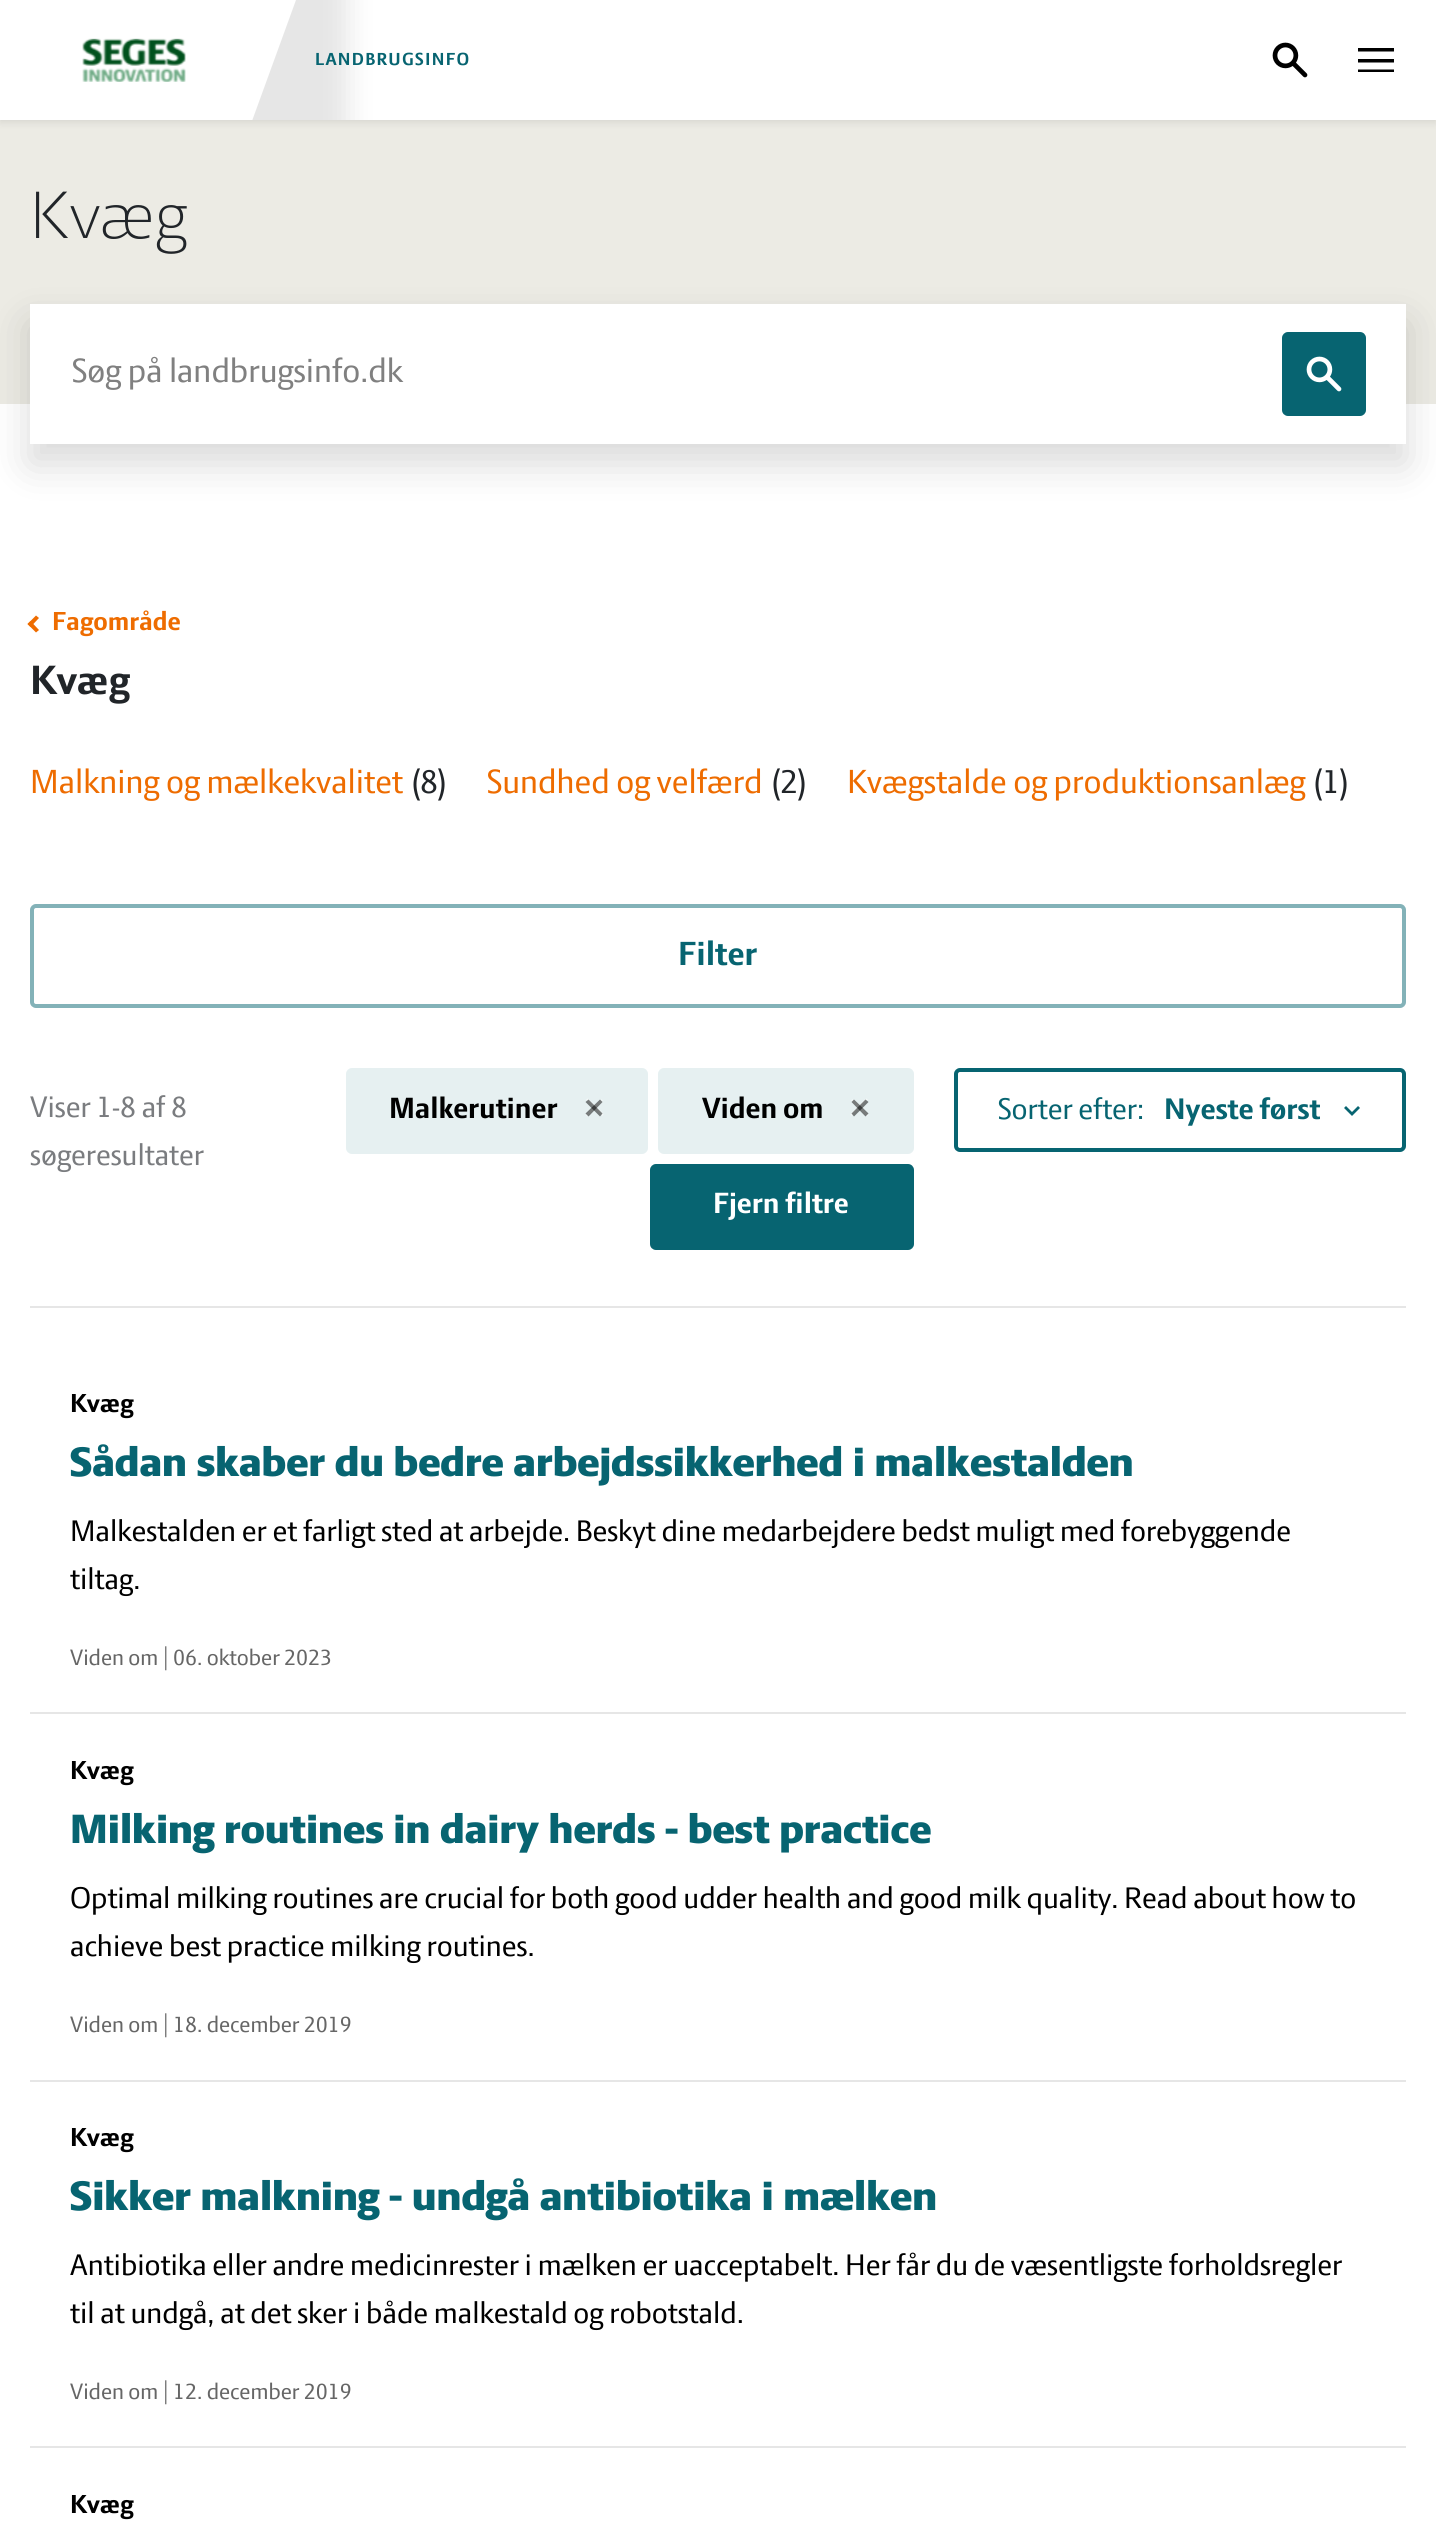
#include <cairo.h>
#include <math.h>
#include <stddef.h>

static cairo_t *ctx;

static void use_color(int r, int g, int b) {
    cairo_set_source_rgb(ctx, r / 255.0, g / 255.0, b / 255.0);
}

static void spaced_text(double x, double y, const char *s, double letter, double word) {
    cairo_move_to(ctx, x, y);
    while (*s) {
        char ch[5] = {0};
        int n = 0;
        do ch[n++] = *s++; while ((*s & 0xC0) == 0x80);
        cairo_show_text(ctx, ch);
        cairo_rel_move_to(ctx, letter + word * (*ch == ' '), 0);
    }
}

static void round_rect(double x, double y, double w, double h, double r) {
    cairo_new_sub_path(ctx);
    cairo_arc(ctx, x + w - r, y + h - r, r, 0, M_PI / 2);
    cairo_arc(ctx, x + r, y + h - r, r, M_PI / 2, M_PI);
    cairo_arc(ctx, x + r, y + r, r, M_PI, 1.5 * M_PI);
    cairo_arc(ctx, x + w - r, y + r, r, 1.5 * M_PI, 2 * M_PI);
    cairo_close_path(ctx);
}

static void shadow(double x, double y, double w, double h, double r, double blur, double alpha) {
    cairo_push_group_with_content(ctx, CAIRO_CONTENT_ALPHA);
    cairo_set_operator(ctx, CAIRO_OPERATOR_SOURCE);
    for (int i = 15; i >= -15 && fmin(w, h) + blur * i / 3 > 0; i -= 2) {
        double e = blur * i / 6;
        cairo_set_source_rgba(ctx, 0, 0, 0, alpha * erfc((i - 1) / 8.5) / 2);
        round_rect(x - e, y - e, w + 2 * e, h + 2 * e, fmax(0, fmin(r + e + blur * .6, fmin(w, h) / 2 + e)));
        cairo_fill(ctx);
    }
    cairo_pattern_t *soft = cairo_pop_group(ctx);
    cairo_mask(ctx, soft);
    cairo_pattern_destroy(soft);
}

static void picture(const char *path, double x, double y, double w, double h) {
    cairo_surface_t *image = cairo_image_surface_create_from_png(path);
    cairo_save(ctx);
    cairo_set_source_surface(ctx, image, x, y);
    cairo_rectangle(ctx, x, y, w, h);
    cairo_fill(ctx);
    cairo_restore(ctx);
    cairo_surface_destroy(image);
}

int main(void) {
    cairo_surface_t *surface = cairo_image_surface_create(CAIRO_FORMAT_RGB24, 1436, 2542);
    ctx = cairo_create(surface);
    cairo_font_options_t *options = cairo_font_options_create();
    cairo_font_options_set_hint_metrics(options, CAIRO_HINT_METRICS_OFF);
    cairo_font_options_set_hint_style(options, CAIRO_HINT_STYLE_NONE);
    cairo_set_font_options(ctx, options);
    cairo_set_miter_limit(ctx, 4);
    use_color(255, 255, 255);
    cairo_paint(ctx);
    use_color(236, 235, 228);
    cairo_rectangle(ctx, 0, 120, 1436, 284);
    cairo_fill(ctx);
    use_color(0, 0, 0);
    shadow(0, 2, 1436, 120, 0, 4, 0.1);
    use_color(255, 255, 255);
    cairo_rectangle(ctx, 252, 0, 1184, 120);
    cairo_fill(ctx);
    cairo_save(ctx);
    cairo_rectangle(ctx, 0, 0, 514, 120);
    cairo_clip(ctx);
    use_color(0, 0, 0);
    shadow(-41, -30, 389, 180, 0, 13.5, 0.1);
    cairo_restore(ctx);
    cairo_save(ctx);
    cairo_rectangle(ctx, 0, 0, 514, 120);
    cairo_clip(ctx);
    cairo_new_path(ctx);
    cairo_move_to(ctx, 0, 0);
    cairo_line_to(ctx, 296, 0);
    cairo_line_to(ctx, 252, 121);
    cairo_line_to(ctx, -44, 121);
    cairo_close_path(ctx);
    cairo_fill(ctx);
    cairo_restore(ctx);
    picture("img1.png", 82, 38, 104, 44);
    cairo_select_font_face(ctx, "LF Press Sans", CAIRO_FONT_SLANT_NORMAL, CAIRO_FONT_WEIGHT_BOLD);
    cairo_set_font_size(ctx, 18.75);
    use_color(7, 100, 113);
    spaced_text(315, 65, "LANDBRUGSINFO", 1.3, 0);
    picture("img2.png", 1272, 42, 36, 36);
    cairo_save(ctx);
    cairo_rectangle(ctx, 1358, 48, 36, 24);
    cairo_clip(ctx);
    use_color(0, 0, 0);
    cairo_set_fill_rule(ctx, CAIRO_FILL_RULE_EVEN_ODD);
    cairo_new_path(ctx);
    cairo_move_to(ctx, 1358, 48);
    cairo_line_to(ctx, 1394, 48);
    cairo_line_to(ctx, 1394, 51.5);
    cairo_line_to(ctx, 1358, 51.5);
    cairo_close_path(ctx);
    cairo_move_to(ctx, 1358, 59);
    cairo_line_to(ctx, 1394, 59);
    cairo_line_to(ctx, 1394, 62.5);
    cairo_line_to(ctx, 1358, 62.5);
    cairo_close_path(ctx);
    cairo_move_to(ctx, 1358, 69.5);
    cairo_line_to(ctx, 1394, 69.5);
    cairo_line_to(ctx, 1394, 73);
    cairo_line_to(ctx, 1358, 73);
    cairo_close_path(ctx);
    cairo_fill(ctx);
    cairo_restore(ctx);
    cairo_select_font_face(ctx, "LF Press Sans Light", CAIRO_FONT_SLANT_NORMAL, CAIRO_FONT_WEIGHT_NORMAL);
    cairo_set_font_size(ctx, 72);
    use_color(33, 37, 41);
    cairo_move_to(ctx, 30, 238);
    cairo_show_text(ctx, "Kvæg");
    use_color(0, 0, 0);
    shadow(30, 324, 1376, 140, 0, 20, 0.15);
    use_color(255, 255, 255);
    cairo_rectangle(ctx, 30, 304, 1376, 140);
    cairo_fill(ctx);
    cairo_select_font_face(ctx, "LF Press Sans", CAIRO_FONT_SLANT_NORMAL, CAIRO_FONT_WEIGHT_NORMAL);
    cairo_set_font_size(ctx, 36);
    use_color(128, 128, 128);
    cairo_move_to(ctx, 72, 382);
    cairo_show_text(ctx, "Søg på landbrugsinfo.dk");
    use_color(7, 100, 113);
    round_rect(1284, 334, 80, 80, 4);
    cairo_fill_preserve(ctx);
    cairo_set_line_width(ctx, 4);
    cairo_stroke(ctx);
    picture("img3.png", 1306, 356, 36, 36);
    use_color(238, 108, 0);
    cairo_new_path(ctx);
    cairo_move_to(ctx, 30.5, 621);
    cairo_line_to(ctx, 39, 630);
    cairo_line_to(ctx, 36, 632.5);
    cairo_line_to(ctx, 27.5, 624);
    cairo_close_path(ctx);
    cairo_fill(ctx);
    cairo_new_path(ctx);
    cairo_move_to(ctx, 36, 615.5);
    cairo_line_to(ctx, 39, 618);
    cairo_line_to(ctx, 30.5, 627);
    cairo_line_to(ctx, 27.5, 624);
    cairo_close_path(ctx);
    cairo_fill(ctx);
    cairo_select_font_face(ctx, "LF Press Sans", CAIRO_FONT_SLANT_NORMAL, CAIRO_FONT_WEIGHT_BOLD);
    cairo_set_font_size(ctx, 28);
    cairo_move_to(ctx, 52, 630);
    cairo_show_text(ctx, "Fagområde");
    cairo_set_font_size(ctx, 44);
    use_color(33, 37, 41);
    cairo_move_to(ctx, 30, 694);
    cairo_show_text(ctx, "Kvæg");
    cairo_select_font_face(ctx, "LF Press Sans", CAIRO_FONT_SLANT_NORMAL, CAIRO_FONT_WEIGHT_NORMAL);
    cairo_set_font_size(ctx, 36);
    use_color(238, 108, 0);
    cairo_move_to(ctx, 30, 793);
    cairo_show_text(ctx, "Malkning og mælkekvalitet");
    use_color(33, 37, 41);
    cairo_move_to(ctx, 411, 793);
    cairo_show_text(ctx, "(8)");
    use_color(238, 108, 0);
    cairo_move_to(ctx, 487, 793);
    cairo_show_text(ctx, "Sundhed og velfærd");
    use_color(33, 37, 41);
    cairo_move_to(ctx, 771, 793);
    cairo_show_text(ctx, "(2)");
    use_color(238, 108, 0);
    cairo_move_to(ctx, 847, 793);
    cairo_show_text(ctx, "Kvægstalde og produktionsanlæg");
    use_color(33, 37, 41);
    cairo_move_to(ctx, 1313, 793);
    cairo_show_text(ctx, "(1)");
    round_rect(32, 906, 1372, 100, 4);
    use_color(131, 178, 184);
    cairo_stroke(ctx);
    cairo_select_font_face(ctx, "LF Press Sans", CAIRO_FONT_SLANT_NORMAL, CAIRO_FONT_WEIGHT_BOLD);
    use_color(7, 100, 113);
    cairo_move_to(ctx, 678, 965);
    cairo_show_text(ctx, "Filter");
    use_color(230, 230, 230);
    cairo_rectangle(ctx, 30, 1306, 1376, 2);
    cairo_fill(ctx);
    cairo_select_font_face(ctx, "LF Press Sans", CAIRO_FONT_SLANT_NORMAL, CAIRO_FONT_WEIGHT_NORMAL);
    cairo_set_font_size(ctx, 32);
    use_color(122, 124, 127);
    cairo_move_to(ctx, 30, 1117);
    cairo_show_text(ctx, "Viser 1-8 af 8");
    cairo_move_to(ctx, 30, 1165);
    cairo_show_text(ctx, "søgeresultater");
    use_color(230, 240, 241);
    round_rect(348, 1070, 298, 82, 4);
    cairo_fill_preserve(ctx);
    cairo_stroke(ctx);
    cairo_select_font_face(ctx, "LF Press Sans", CAIRO_FONT_SLANT_NORMAL, CAIRO_FONT_WEIGHT_BOLD);
    cairo_set_font_size(ctx, 31.5);
    use_color(0, 0, 0);
    cairo_move_to(ctx, 389, 1118);
    cairo_show_text(ctx, "Malkerutiner");
    picture("img4.png", 586, 1098, 18, 18);
    cairo_set_source_rgba(ctx, 0, 0, 0, 0.5);
    cairo_new_path(ctx);
    cairo_move_to(ctx, 588.5, 1099.5);
    cairo_line_to(ctx, 602.5, 1113.5);
    cairo_line_to(ctx, 600, 1116.5);
    cairo_line_to(ctx, 585.5, 1102);
    cairo_close_path(ctx);
    cairo_fill(ctx);
    cairo_new_path(ctx);
    cairo_move_to(ctx, 585.5, 1113.5);
    cairo_line_to(ctx, 600, 1099.5);
    cairo_line_to(ctx, 602.5, 1102);
    cairo_line_to(ctx, 588.5, 1116.5);
    cairo_close_path(ctx);
    cairo_fill(ctx);
    use_color(230, 240, 241);
    round_rect(660, 1070, 252, 82, 4);
    cairo_fill_preserve(ctx);
    cairo_stroke(ctx);
    use_color(0, 0, 0);
    cairo_move_to(ctx, 702, 1118);
    cairo_show_text(ctx, "Viden om");
    picture("img5.png", 850, 1098, 18, 18);
    cairo_set_source_rgba(ctx, 0, 0, 0, 0.5);
    cairo_new_path(ctx);
    cairo_move_to(ctx, 854, 1099.5);
    cairo_line_to(ctx, 868.5, 1113.5);
    cairo_line_to(ctx, 865.5, 1116.5);
    cairo_line_to(ctx, 851.5, 1102);
    cairo_close_path(ctx);
    cairo_fill(ctx);
    cairo_new_path(ctx);
    cairo_move_to(ctx, 851.5, 1113.5);
    cairo_line_to(ctx, 865.5, 1099.5);
    cairo_line_to(ctx, 868.5, 1102);
    cairo_line_to(ctx, 854, 1116.5);
    cairo_close_path(ctx);
    cairo_fill(ctx);
    use_color(7, 100, 113);
    round_rect(652, 1166, 260, 82, 4);
    cairo_fill_preserve(ctx);
    cairo_stroke(ctx);
    use_color(255, 255, 255);
    cairo_move_to(ctx, 713, 1213);
    cairo_show_text(ctx, "Fjern filtre");
    round_rect(956, 1070, 448, 80, 4);
    use_color(7, 100, 113);
    cairo_stroke(ctx);
    cairo_select_font_face(ctx, "LF Press Sans", CAIRO_FONT_SLANT_NORMAL, CAIRO_FONT_WEIGHT_NORMAL);
    cairo_set_font_size(ctx, 32);
    cairo_move_to(ctx, 998, 1119);
    cairo_show_text(ctx, "Sorter efter:");
    cairo_new_path(ctx);
    cairo_move_to(ctx, 1359, 1107);
    cairo_line_to(ctx, 1352, 1114);
    cairo_line_to(ctx, 1345, 1107);
    cairo_set_line_width(ctx, 2.8);
    cairo_stroke(ctx);
    cairo_select_font_face(ctx, "LF Press Sans", CAIRO_FONT_SLANT_NORMAL, CAIRO_FONT_WEIGHT_BOLD);
    cairo_move_to(ctx, 1164, 1119);
    cairo_show_text(ctx, "Nyeste først");
    use_color(230, 230, 230);
    cairo_rectangle(ctx, 30, 1712, 1376, 2);
    cairo_fill(ctx);
    cairo_set_font_size(ctx, 28);
    use_color(0, 0, 0);
    cairo_move_to(ctx, 70, 1412);
    cairo_show_text(ctx, "Kvæg");
    cairo_select_font_face(ctx, "LF Press Sans Black", CAIRO_FONT_SLANT_NORMAL, CAIRO_FONT_WEIGHT_NORMAL);
    cairo_set_font_size(ctx, 44);
    use_color(7, 100, 113);
    cairo_move_to(ctx, 70, 1476);
    cairo_show_text(ctx, "Sådan skaber du bedre arbejdssikkerhed i malkestalden");
    cairo_select_font_face(ctx, "LF Press Sans", CAIRO_FONT_SLANT_NORMAL, CAIRO_FONT_WEIGHT_NORMAL);
    cairo_set_font_size(ctx, 32);
    use_color(0, 0, 0);
    cairo_move_to(ctx, 70, 1541);
    cairo_show_text(ctx, "Malkestalden er et farligt sted at arbejde. Beskyt dine medarbejdere bedst muligt med forebyggende");
    cairo_move_to(ctx, 70, 1589);
    cairo_show_text(ctx, "tiltag.");
    cairo_set_font_size(ctx, 24);
    use_color(102, 102, 102);
    cairo_move_to(ctx, 70, 1665);
    cairo_show_text(ctx, "Viden om | 06. oktober 2023");
    use_color(230, 230, 230);
    cairo_rectangle(ctx, 30, 2080, 1376, 2);
    cairo_fill(ctx);
    cairo_select_font_face(ctx, "LF Press Sans", CAIRO_FONT_SLANT_NORMAL, CAIRO_FONT_WEIGHT_BOLD);
    cairo_set_font_size(ctx, 28);
    use_color(0, 0, 0);
    cairo_move_to(ctx, 70, 1779);
    cairo_show_text(ctx, "Kvæg");
    cairo_select_font_face(ctx, "LF Press Sans Black", CAIRO_FONT_SLANT_NORMAL, CAIRO_FONT_WEIGHT_NORMAL);
    cairo_set_font_size(ctx, 44);
    use_color(7, 100, 113);
    cairo_move_to(ctx, 70, 1843);
    cairo_show_text(ctx, "Milking routines in dairy herds - best practice");
    cairo_select_font_face(ctx, "LF Press Sans", CAIRO_FONT_SLANT_NORMAL, CAIRO_FONT_WEIGHT_NORMAL);
    cairo_set_font_size(ctx, 32);
    use_color(0, 0, 0);
    cairo_move_to(ctx, 70, 1908);
    cairo_show_text(ctx, "Optimal milking routines are crucial for both good udder health and good milk quality. Read about how to");
    cairo_move_to(ctx, 70, 1956);
    cairo_show_text(ctx, "achieve best practice milking routines.");
    cairo_set_font_size(ctx, 24);
    use_color(102, 102, 102);
    cairo_move_to(ctx, 70, 2032);
    cairo_show_text(ctx, "Viden om | 18. december 2019");
    use_color(230, 230, 230);
    cairo_rectangle(ctx, 30, 2446, 1376, 2);
    cairo_fill(ctx);
    cairo_select_font_face(ctx, "LF Press Sans", CAIRO_FONT_SLANT_NORMAL, CAIRO_FONT_WEIGHT_BOLD);
    cairo_set_font_size(ctx, 28);
    use_color(0, 0, 0);
    cairo_move_to(ctx, 70, 2146);
    cairo_show_text(ctx, "Kvæg");
    cairo_select_font_face(ctx, "LF Press Sans Black", CAIRO_FONT_SLANT_NORMAL, CAIRO_FONT_WEIGHT_NORMAL);
    cairo_set_font_size(ctx, 44);
    use_color(7, 100, 113);
    cairo_move_to(ctx, 70, 2210);
    cairo_show_text(ctx, "Sikker malkning - undgå antibiotika i mælken");
    cairo_select_font_face(ctx, "LF Press Sans", CAIRO_FONT_SLANT_NORMAL, CAIRO_FONT_WEIGHT_NORMAL);
    cairo_set_font_size(ctx, 32);
    use_color(0, 0, 0);
    cairo_move_to(ctx, 70, 2275);
    cairo_show_text(ctx, "Antibiotika eller andre medicinrester i mælken er uacceptabelt. Her får du de væsentligste forholdsregler");
    cairo_move_to(ctx, 70, 2323);
    cairo_show_text(ctx, "til at undgå, at det sker i både malkestald og robotstald.");
    cairo_set_font_size(ctx, 24);
    use_color(102, 102, 102);
    cairo_move_to(ctx, 70, 2399);
    cairo_show_text(ctx, "Viden om | 12. december 2019");
    cairo_select_font_face(ctx, "LF Press Sans", CAIRO_FONT_SLANT_NORMAL, CAIRO_FONT_WEIGHT_BOLD);
    cairo_set_font_size(ctx, 28);
    use_color(0, 0, 0);
    cairo_move_to(ctx, 70, 2513);
    cairo_show_text(ctx, "Kvæg");
    cairo_surface_write_to_png(surface, "result.png");
    cairo_font_options_destroy(options);
    cairo_destroy(ctx);
    cairo_surface_destroy(surface);
    return 0;
}
